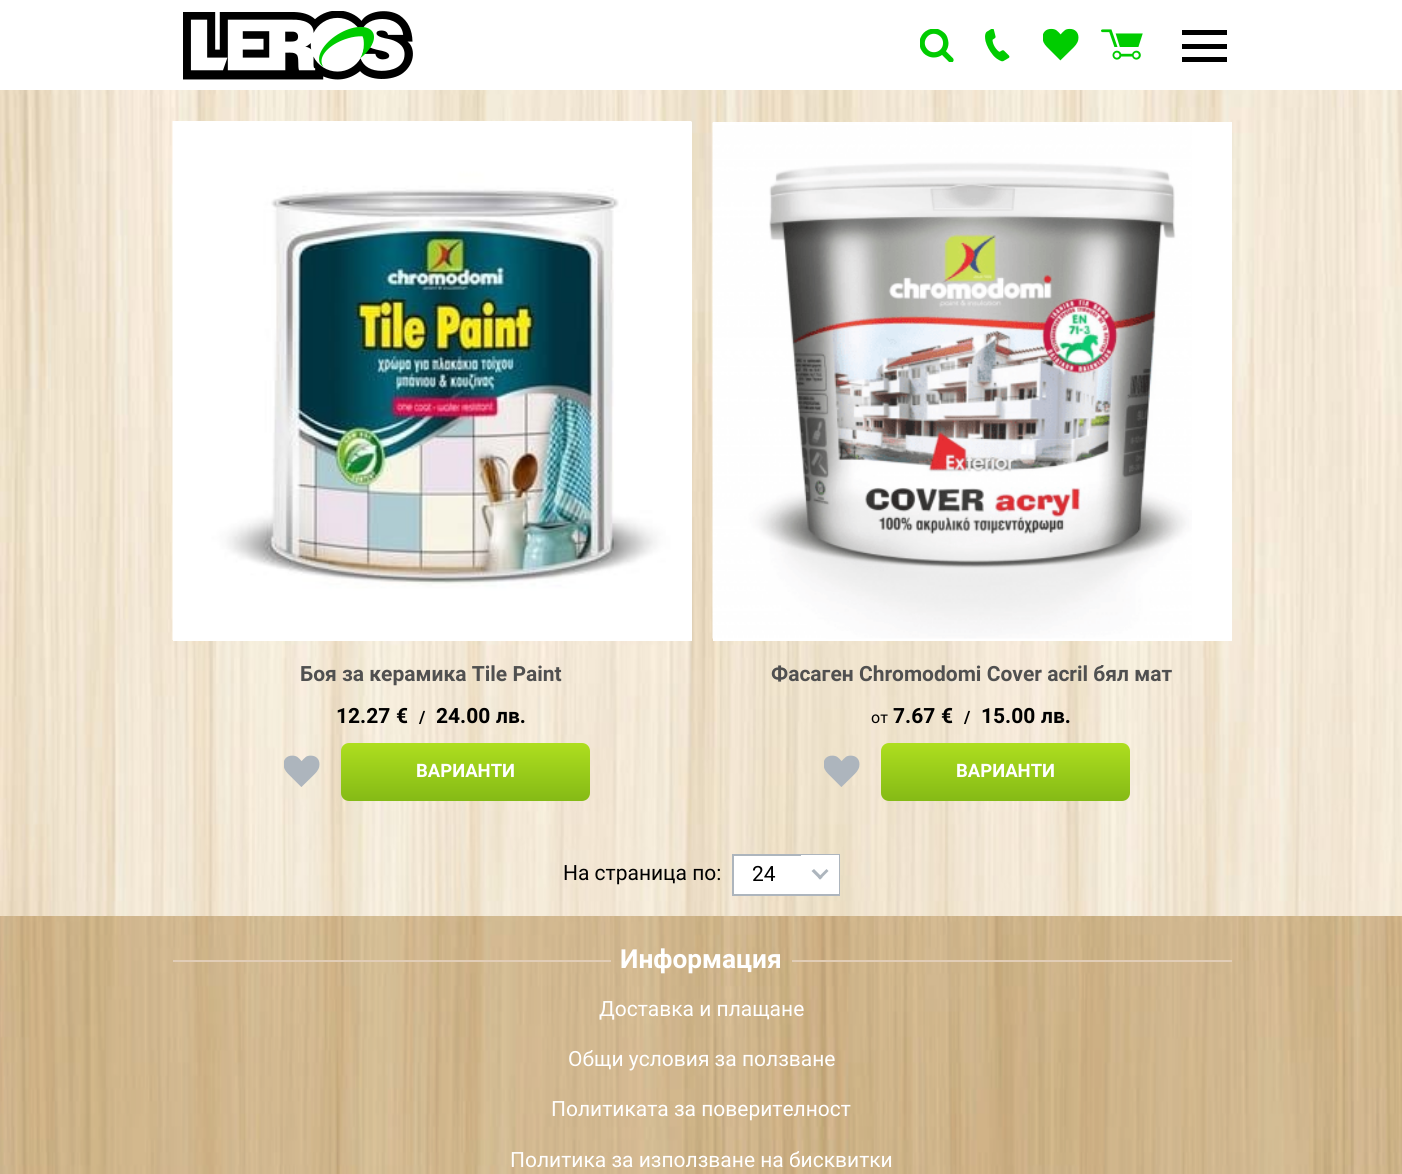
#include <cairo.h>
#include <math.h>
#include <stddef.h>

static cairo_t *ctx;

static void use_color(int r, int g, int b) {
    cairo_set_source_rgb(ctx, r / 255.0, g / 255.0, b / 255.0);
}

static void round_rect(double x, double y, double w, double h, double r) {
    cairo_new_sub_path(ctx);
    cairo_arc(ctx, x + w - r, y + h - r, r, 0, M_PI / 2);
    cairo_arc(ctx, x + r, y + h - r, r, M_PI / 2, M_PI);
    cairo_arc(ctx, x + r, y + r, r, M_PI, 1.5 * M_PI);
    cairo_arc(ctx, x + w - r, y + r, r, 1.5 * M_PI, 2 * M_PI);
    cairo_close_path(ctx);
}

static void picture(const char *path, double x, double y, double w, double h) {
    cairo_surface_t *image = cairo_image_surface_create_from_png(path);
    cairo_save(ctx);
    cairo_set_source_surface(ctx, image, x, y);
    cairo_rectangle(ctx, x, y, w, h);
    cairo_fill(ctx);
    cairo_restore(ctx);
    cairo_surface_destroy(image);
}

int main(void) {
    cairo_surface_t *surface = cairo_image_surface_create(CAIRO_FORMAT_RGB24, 1402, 1174);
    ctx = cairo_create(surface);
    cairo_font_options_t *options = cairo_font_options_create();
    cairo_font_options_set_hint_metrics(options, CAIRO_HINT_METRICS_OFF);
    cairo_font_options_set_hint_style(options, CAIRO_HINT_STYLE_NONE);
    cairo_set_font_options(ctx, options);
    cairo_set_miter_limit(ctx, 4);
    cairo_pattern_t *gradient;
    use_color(255, 255, 255);
    cairo_paint(ctx);
    picture("img1.png", 0, 90, 1402, 826);
    picture("img2.png", 183, 11, 230, 69);
    picture("img3.png", 920, 29, 34, 33);
    picture("img4.png", 985, 29, 25, 33);
    picture("img5.png", 1043, 28, 36, 33);
    picture("img6.png", 1101, 29, 42, 31);
    use_color(0, 0, 0);
    cairo_rectangle(ctx, 1182, 44, 45, 5);
    cairo_fill(ctx);
    cairo_rectangle(ctx, 1182, 30, 45, 5);
    cairo_fill(ctx);
    cairo_rectangle(ctx, 1182, 57, 45, 5);
    cairo_fill(ctx);
    use_color(255, 255, 255);
    cairo_rectangle(ctx, 173, 122, 519, 519);
    cairo_fill(ctx);
    picture("img7.png", 172, 121, 520, 519);
    cairo_select_font_face(ctx, "Roboto", CAIRO_FONT_SLANT_NORMAL, CAIRO_FONT_WEIGHT_BOLD);
    cairo_set_font_size(ctx, 21);
    use_color(80, 80, 80);
    cairo_move_to(ctx, 300, 681);
    cairo_show_text(ctx, "Боя за керамика Tile Paint");
    use_color(0, 0, 0);
    cairo_move_to(ctx, 336, 723);
    cairo_show_text(ctx, "12.27");
    cairo_move_to(ctx, 396, 723);
    cairo_show_text(ctx, "€");
    cairo_set_font_size(ctx, 17);
    cairo_move_to(ctx, 419, 723);
    cairo_show_text(ctx, "/");
    cairo_set_font_size(ctx, 21);
    cairo_move_to(ctx, 436, 723);
    cairo_show_text(ctx, "24.00");
    cairo_move_to(ctx, 496, 723);
    cairo_show_text(ctx, "лв.");
    picture("img8.png", 284, 755, 36, 32);
    gradient = cairo_pattern_create_linear(465, 743, 465, 830);
    cairo_pattern_add_color_stop_rgba(gradient, 0, 0.682, 0.871, 0.122, 1);
    cairo_pattern_add_color_stop_rgba(gradient, 1, 0.439, 0.659, 0.067, 1);
    cairo_set_source(ctx, gradient);
    cairo_pattern_destroy(gradient);
    round_rect(341, 743, 249, 58, 8);
    cairo_fill(ctx);
    cairo_set_font_size(ctx, 18.5);
    use_color(255, 255, 255);
    cairo_move_to(ctx, 416, 777);
    cairo_show_text(ctx, "ВАРИАНТИ");
    cairo_rectangle(ctx, 713, 122, 519, 519);
    cairo_fill(ctx);
    picture("img9.png", 712, 122, 480, 517);
    cairo_set_font_size(ctx, 21);
    use_color(80, 80, 80);
    cairo_move_to(ctx, 771, 681);
    cairo_show_text(ctx, "Фасаген Chromodomi Cover acril бял мат");
    cairo_select_font_face(ctx, "Roboto", CAIRO_FONT_SLANT_NORMAL, CAIRO_FONT_WEIGHT_NORMAL);
    cairo_set_font_size(ctx, 16);
    use_color(0, 0, 0);
    cairo_move_to(ctx, 871, 723);
    cairo_show_text(ctx, "от");
    cairo_select_font_face(ctx, "Roboto", CAIRO_FONT_SLANT_NORMAL, CAIRO_FONT_WEIGHT_BOLD);
    cairo_set_font_size(ctx, 21);
    cairo_move_to(ctx, 893, 723);
    cairo_show_text(ctx, "7.67");
    cairo_move_to(ctx, 941, 723);
    cairo_show_text(ctx, "€");
    cairo_set_font_size(ctx, 17);
    cairo_move_to(ctx, 964, 723);
    cairo_show_text(ctx, "/");
    cairo_set_font_size(ctx, 21);
    cairo_move_to(ctx, 981, 723);
    cairo_show_text(ctx, "15.00");
    cairo_move_to(ctx, 1041, 723);
    cairo_show_text(ctx, "лв.");
    picture("img10.png", 824, 755, 36, 32);
    gradient = cairo_pattern_create_linear(1005, 743, 1005, 830);
    cairo_pattern_add_color_stop_rgba(gradient, 0, 0.682, 0.871, 0.122, 1);
    cairo_pattern_add_color_stop_rgba(gradient, 1, 0.439, 0.659, 0.067, 1);
    cairo_set_source(ctx, gradient);
    cairo_pattern_destroy(gradient);
    round_rect(881, 743, 249, 58, 8);
    cairo_fill(ctx);
    cairo_set_font_size(ctx, 18.5);
    use_color(255, 255, 255);
    cairo_move_to(ctx, 956, 777);
    cairo_show_text(ctx, "ВАРИАНТИ");
    cairo_select_font_face(ctx, "Roboto", CAIRO_FONT_SLANT_NORMAL, CAIRO_FONT_WEIGHT_NORMAL);
    cairo_set_font_size(ctx, 21);
    use_color(0, 0, 0);
    cairo_move_to(ctx, 563, 880);
    cairo_show_text(ctx, "На страница по:");
    use_color(255, 255, 255);
    cairo_rectangle(ctx, 734, 856, 67, 38);
    cairo_fill(ctx);
    cairo_rectangle(ctx, 733, 855, 106, 40);
    use_color(173, 181, 189);
    cairo_stroke(ctx);
    use_color(0, 0, 0);
    cairo_move_to(ctx, 752, 881);
    cairo_show_text(ctx, "24");
    use_color(255, 255, 255);
    cairo_rectangle(ctx, 801, 855, 38, 39);
    cairo_fill(ctx);
    use_color(173, 181, 189);
    cairo_new_path(ctx);
    cairo_move_to(ctx, 826.5, 869);
    cairo_line_to(ctx, 828.5, 871);
    cairo_line_to(ctx, 820, 879.5);
    cairo_line_to(ctx, 818, 877.5);
    cairo_close_path(ctx);
    cairo_fill(ctx);
    cairo_new_path(ctx);
    cairo_move_to(ctx, 814, 869);
    cairo_line_to(ctx, 822.5, 877.5);
    cairo_line_to(ctx, 820, 879.5);
    cairo_line_to(ctx, 811.5, 871);
    cairo_close_path(ctx);
    cairo_fill(ctx);
    picture("img11.png", 0, 916, 1402, 258);
    use_color(225, 205, 183);
    cairo_rectangle(ctx, 173, 960, 438, 2);
    cairo_fill(ctx);
    cairo_select_font_face(ctx, "Roboto", CAIRO_FONT_SLANT_NORMAL, CAIRO_FONT_WEIGHT_BOLD);
    cairo_set_font_size(ctx, 26.25);
    use_color(255, 255, 255);
    cairo_move_to(ctx, 620, 968);
    cairo_show_text(ctx, "Информация");
    use_color(225, 205, 183);
    cairo_rectangle(ctx, 792, 960, 440, 2);
    cairo_fill(ctx);
    cairo_select_font_face(ctx, "Roboto", CAIRO_FONT_SLANT_NORMAL, CAIRO_FONT_WEIGHT_NORMAL);
    cairo_set_font_size(ctx, 21);
    use_color(255, 255, 255);
    cairo_move_to(ctx, 599, 1016);
    cairo_show_text(ctx, "Доставка и плащане");
    cairo_move_to(ctx, 568, 1066);
    cairo_show_text(ctx, "Общи условия за ползване");
    cairo_move_to(ctx, 551, 1116);
    cairo_show_text(ctx, "Политиката за поверителност");
    cairo_move_to(ctx, 510, 1167);
    cairo_show_text(ctx, "Политика за използване на бисквитки");
    cairo_surface_write_to_png(surface, "result.png");
    cairo_font_options_destroy(options);
    cairo_destroy(ctx);
    cairo_surface_destroy(surface);
    return 0;
}
